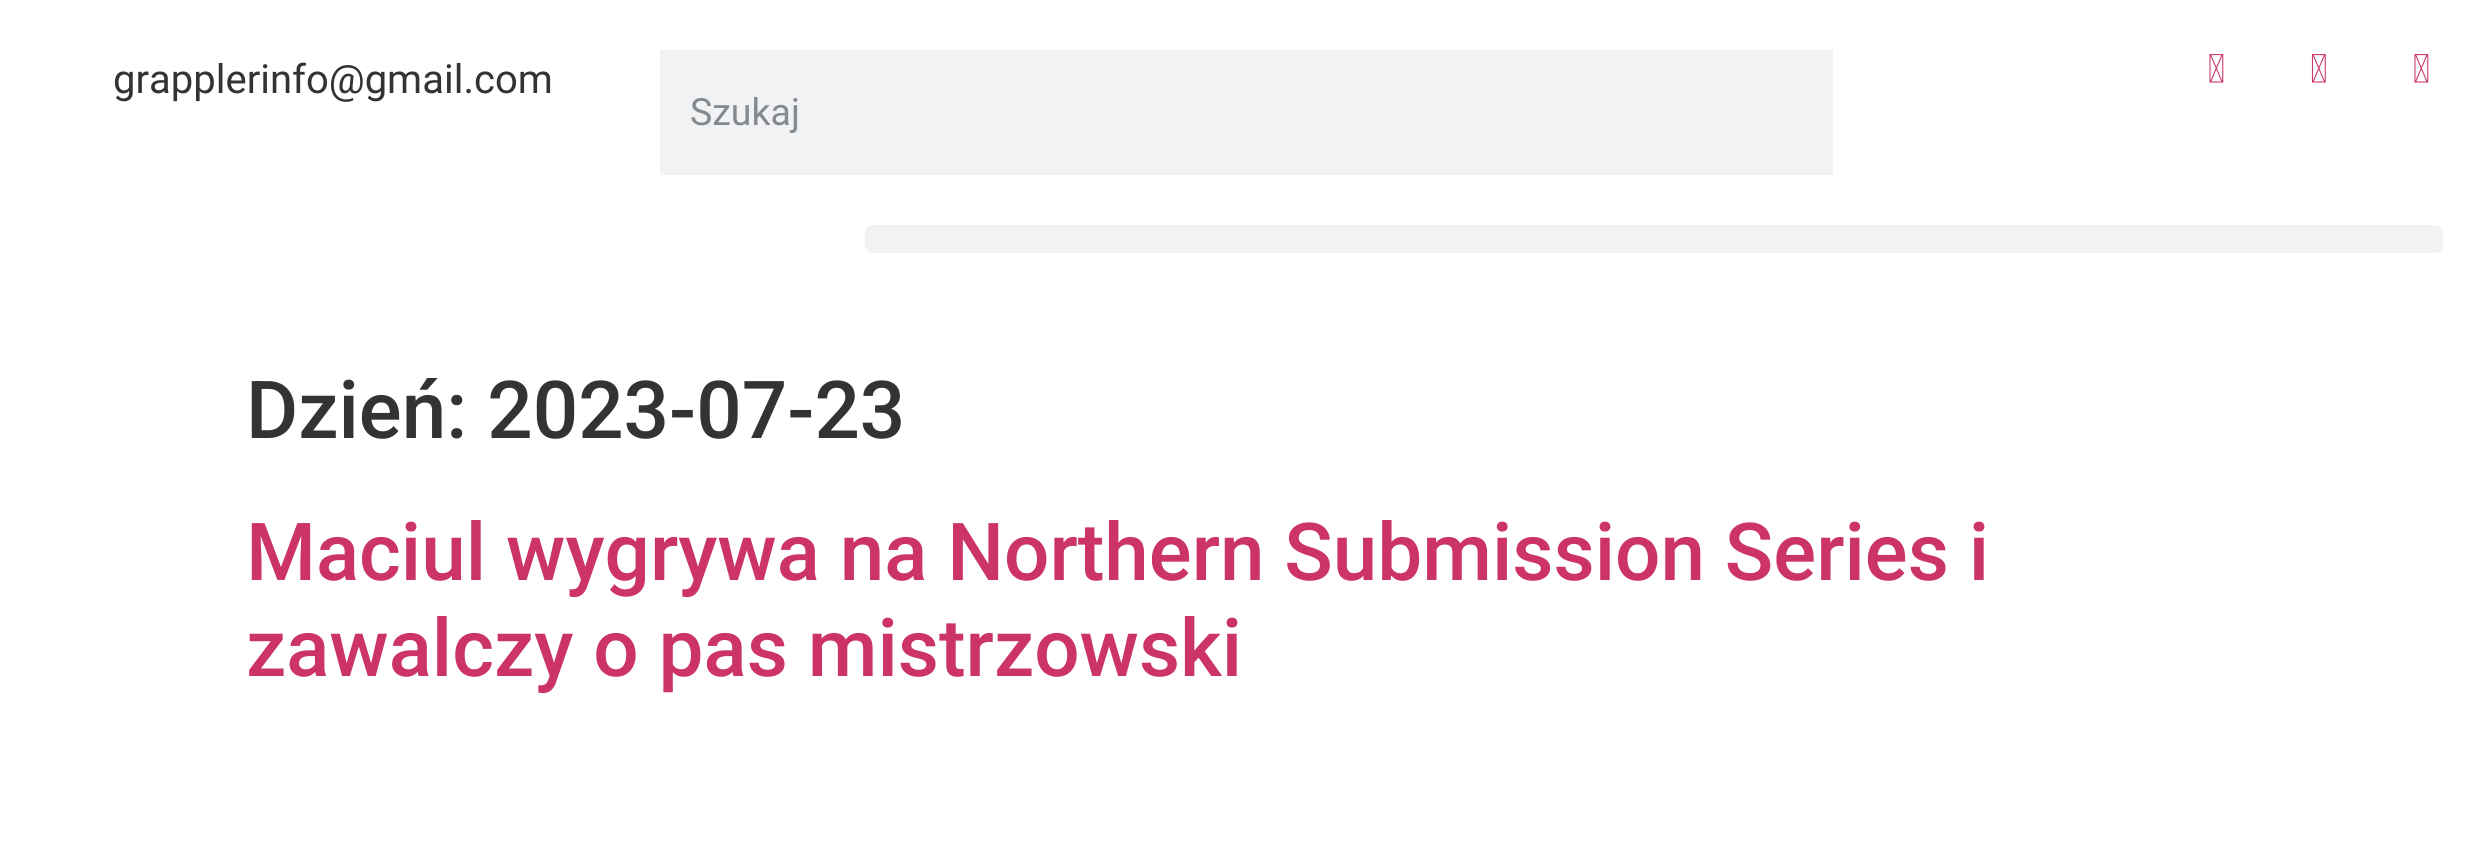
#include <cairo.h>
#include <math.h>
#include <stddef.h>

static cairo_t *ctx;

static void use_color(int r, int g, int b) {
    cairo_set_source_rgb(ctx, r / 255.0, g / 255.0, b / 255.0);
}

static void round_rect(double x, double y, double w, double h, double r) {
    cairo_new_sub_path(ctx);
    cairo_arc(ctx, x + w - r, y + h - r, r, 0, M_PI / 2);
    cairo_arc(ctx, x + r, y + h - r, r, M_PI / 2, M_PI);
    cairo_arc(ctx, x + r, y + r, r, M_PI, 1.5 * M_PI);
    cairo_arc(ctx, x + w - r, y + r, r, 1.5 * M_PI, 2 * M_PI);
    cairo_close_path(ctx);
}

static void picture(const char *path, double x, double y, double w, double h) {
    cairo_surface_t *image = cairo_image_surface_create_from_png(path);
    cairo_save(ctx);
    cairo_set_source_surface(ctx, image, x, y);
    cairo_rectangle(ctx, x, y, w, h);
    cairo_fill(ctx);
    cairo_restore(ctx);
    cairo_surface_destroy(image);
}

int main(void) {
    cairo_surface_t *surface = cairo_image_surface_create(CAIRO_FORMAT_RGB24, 2491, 859);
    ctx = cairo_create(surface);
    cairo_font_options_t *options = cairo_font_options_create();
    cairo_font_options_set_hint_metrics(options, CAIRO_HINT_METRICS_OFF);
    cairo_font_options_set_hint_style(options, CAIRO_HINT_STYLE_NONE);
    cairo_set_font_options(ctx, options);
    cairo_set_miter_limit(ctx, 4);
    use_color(255, 255, 255);
    cairo_paint(ctx);
    cairo_select_font_face(ctx, "Roboto", CAIRO_FONT_SLANT_NORMAL, CAIRO_FONT_WEIGHT_NORMAL);
    cairo_set_font_size(ctx, 40);
    use_color(51, 51, 51);
    cairo_move_to(ctx, 113, 93);
    cairo_show_text(ctx, "grapplerinfo@gmail.com");
    picture("img1.png", 2209, 54, 15, 29);
    picture("img2.png", 2311, 54, 15, 29);
    picture("img1.png", 2414, 54, 15, 29);
    use_color(241, 242, 243);
    cairo_rectangle(ctx, 660, 50, 1173, 125);
    cairo_fill(ctx);
    cairo_set_font_size(ctx, 37.5);
    use_color(134, 138, 142);
    cairo_move_to(ctx, 690, 125);
    cairo_show_text(ctx, "Szukaj");
    use_color(242, 242, 242);
    round_rect(865, 225, 1578, 28, 8);
    cairo_fill(ctx);
    cairo_select_font_face(ctx, "Roboto Medium", CAIRO_FONT_SLANT_NORMAL, CAIRO_FONT_WEIGHT_NORMAL);
    cairo_set_font_size(ctx, 80);
    use_color(51, 51, 51);
    cairo_move_to(ctx, 246, 438);
    cairo_show_text(ctx, "Dzień: 2023-07-23");
    use_color(204, 51, 102);
    cairo_move_to(ctx, 246, 580);
    cairo_show_text(ctx, "Maciul wygrywa na Northern Submission Series i");
    cairo_move_to(ctx, 246, 676);
    cairo_show_text(ctx, "zawalczy o pas mistrzowski");
    cairo_surface_write_to_png(surface, "result.png");
    cairo_font_options_destroy(options);
    cairo_destroy(ctx);
    cairo_surface_destroy(surface);
    return 0;
}
